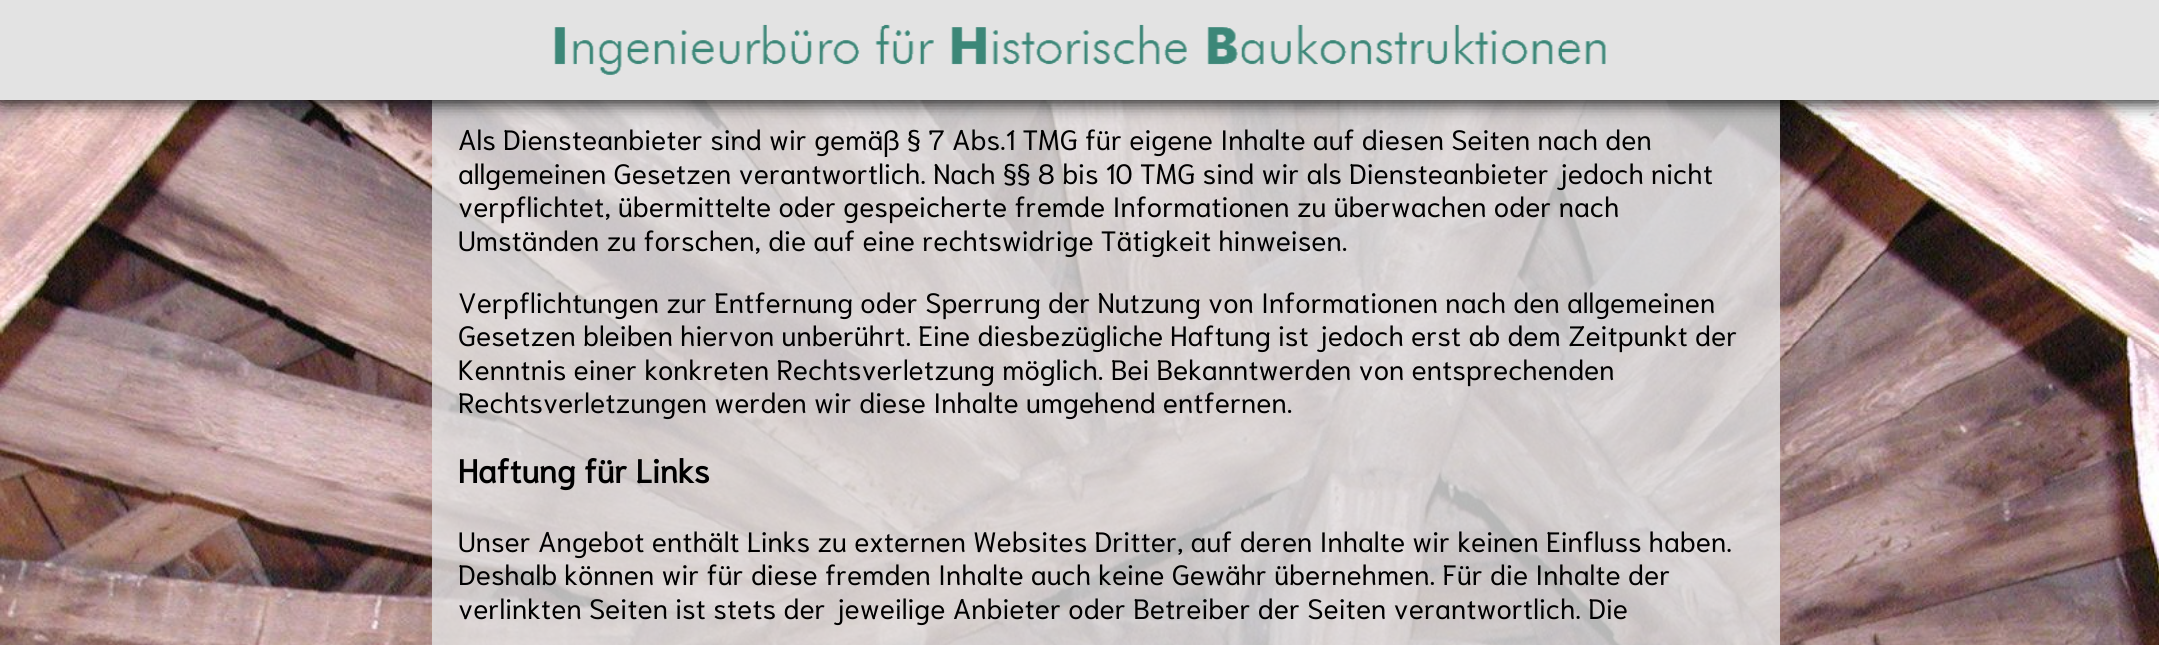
#include <cairo.h>
#include <math.h>
#include <stddef.h>

static cairo_t *ctx;

static void use_color(int r, int g, int b) {
    cairo_set_source_rgb(ctx, r / 255.0, g / 255.0, b / 255.0);
}

static void round_rect(double x, double y, double w, double h, double r) {
    cairo_new_sub_path(ctx);
    cairo_arc(ctx, x + w - r, y + h - r, r, 0, M_PI / 2);
    cairo_arc(ctx, x + r, y + h - r, r, M_PI / 2, M_PI);
    cairo_arc(ctx, x + r, y + r, r, M_PI, 1.5 * M_PI);
    cairo_arc(ctx, x + w - r, y + r, r, 1.5 * M_PI, 2 * M_PI);
    cairo_close_path(ctx);
}

static void shadow(double x, double y, double w, double h, double r, double blur, double alpha) {
    cairo_push_group_with_content(ctx, CAIRO_CONTENT_ALPHA);
    cairo_set_operator(ctx, CAIRO_OPERATOR_SOURCE);
    for (int i = 15; i >= -15 && fmin(w, h) + blur * i / 3 > 0; i -= 2) {
        double e = blur * i / 6;
        cairo_set_source_rgba(ctx, 0, 0, 0, alpha * erfc((i - 1) / 8.5) / 2);
        round_rect(x - e, y - e, w + 2 * e, h + 2 * e, fmax(0, fmin(r + e + blur * .6, fmin(w, h) / 2 + e)));
        cairo_fill(ctx);
    }
    cairo_pattern_t *soft = cairo_pop_group(ctx);
    cairo_mask(ctx, soft);
    cairo_pattern_destroy(soft);
}

static void picture(const char *path, double x, double y, double w, double h) {
    cairo_surface_t *image = cairo_image_surface_create_from_png(path);
    cairo_save(ctx);
    cairo_set_source_surface(ctx, image, x, y);
    cairo_rectangle(ctx, x, y, w, h);
    cairo_fill(ctx);
    cairo_restore(ctx);
    cairo_surface_destroy(image);
}

int main(void) {
    cairo_surface_t *surface = cairo_image_surface_create(CAIRO_FORMAT_RGB24, 2159, 645);
    ctx = cairo_create(surface);
    cairo_font_options_t *options = cairo_font_options_create();
    cairo_font_options_set_hint_metrics(options, CAIRO_HINT_METRICS_OFF);
    cairo_font_options_set_hint_style(options, CAIRO_HINT_STYLE_NONE);
    cairo_set_font_options(ctx, options);
    cairo_set_miter_limit(ctx, 4);
    use_color(255, 255, 255);
    cairo_paint(ctx);
    picture("img1.png", 0, 100, 2159, 545);
    cairo_set_source_rgba(ctx, 0.89, 0.89, 0.89, 0.8);
    cairo_rectangle(ctx, 432, 100, 1348, 545);
    cairo_fill(ctx);
    use_color(0, 0, 0);
    shadow(0, 2, 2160, 100, 0, 9, 1);
    use_color(227, 227, 227);
    cairo_rectangle(ctx, 0, 0, 2159, 100);
    cairo_fill(ctx);
    picture("img2.png", 554, 24, 1052, 51);
    cairo_select_font_face(ctx, "Niramit", CAIRO_FONT_SLANT_NORMAL, CAIRO_FONT_WEIGHT_NORMAL);
    cairo_set_font_size(ctx, 28);
    use_color(0, 0, 0);
    cairo_move_to(ctx, 458, 150);
    cairo_show_text(ctx, "Als Diensteanbieter sind wir gemäß § 7 Abs.1 TMG für eigene Inhalte auf diesen Seiten nach den");
    cairo_move_to(ctx, 458, 184);
    cairo_show_text(ctx, "allgemeinen Gesetzen verantwortlich. Nach §§ 8 bis 10 TMG sind wir als Diensteanbieter jedoch nicht");
    cairo_move_to(ctx, 458, 217);
    cairo_show_text(ctx, "verpflichtet, übermittelte oder gespeicherte fremde Informationen zu überwachen oder nach");
    cairo_move_to(ctx, 458, 251);
    cairo_show_text(ctx, "Umständen zu forschen, die auf eine rechtswidrige Tätigkeit hinweisen.");
    cairo_move_to(ctx, 458, 313);
    cairo_show_text(ctx, "Verpflichtungen zur Entfernung oder Sperrung der Nutzung von Informationen nach den allgemeinen");
    cairo_move_to(ctx, 458, 346);
    cairo_show_text(ctx, "Gesetzen bleiben hiervon unberührt. Eine diesbezügliche Haftung ist jedoch erst ab dem Zeitpunkt der");
    cairo_move_to(ctx, 458, 380);
    cairo_show_text(ctx, "Kenntnis einer konkreten Rechtsverletzung möglich. Bei Bekanntwerden von entsprechenden");
    cairo_move_to(ctx, 458, 413);
    cairo_show_text(ctx, "Rechtsverletzungen werden wir diese Inhalte umgehend entfernen.");
    cairo_select_font_face(ctx, "Niramit", CAIRO_FONT_SLANT_NORMAL, CAIRO_FONT_WEIGHT_BOLD);
    cairo_set_font_size(ctx, 32.75);
    cairo_move_to(ctx, 458, 483);
    cairo_show_text(ctx, "Haftung für Links");
    cairo_select_font_face(ctx, "Niramit", CAIRO_FONT_SLANT_NORMAL, CAIRO_FONT_WEIGHT_NORMAL);
    cairo_set_font_size(ctx, 28);
    cairo_move_to(ctx, 458, 552);
    cairo_show_text(ctx, "Unser Angebot enthält Links zu externen Websites Dritter, auf deren Inhalte wir keinen Einfluss haben.");
    cairo_move_to(ctx, 458, 585);
    cairo_show_text(ctx, "Deshalb können wir für diese fremden Inhalte auch keine Gewähr übernehmen. Für die Inhalte der");
    cairo_move_to(ctx, 458, 619);
    cairo_show_text(ctx, "verlinkten Seiten ist stets der jeweilige Anbieter oder Betreiber der Seiten verantwortlich. Die");
    cairo_surface_write_to_png(surface, "result.png");
    cairo_font_options_destroy(options);
    cairo_destroy(ctx);
    cairo_surface_destroy(surface);
    return 0;
}
